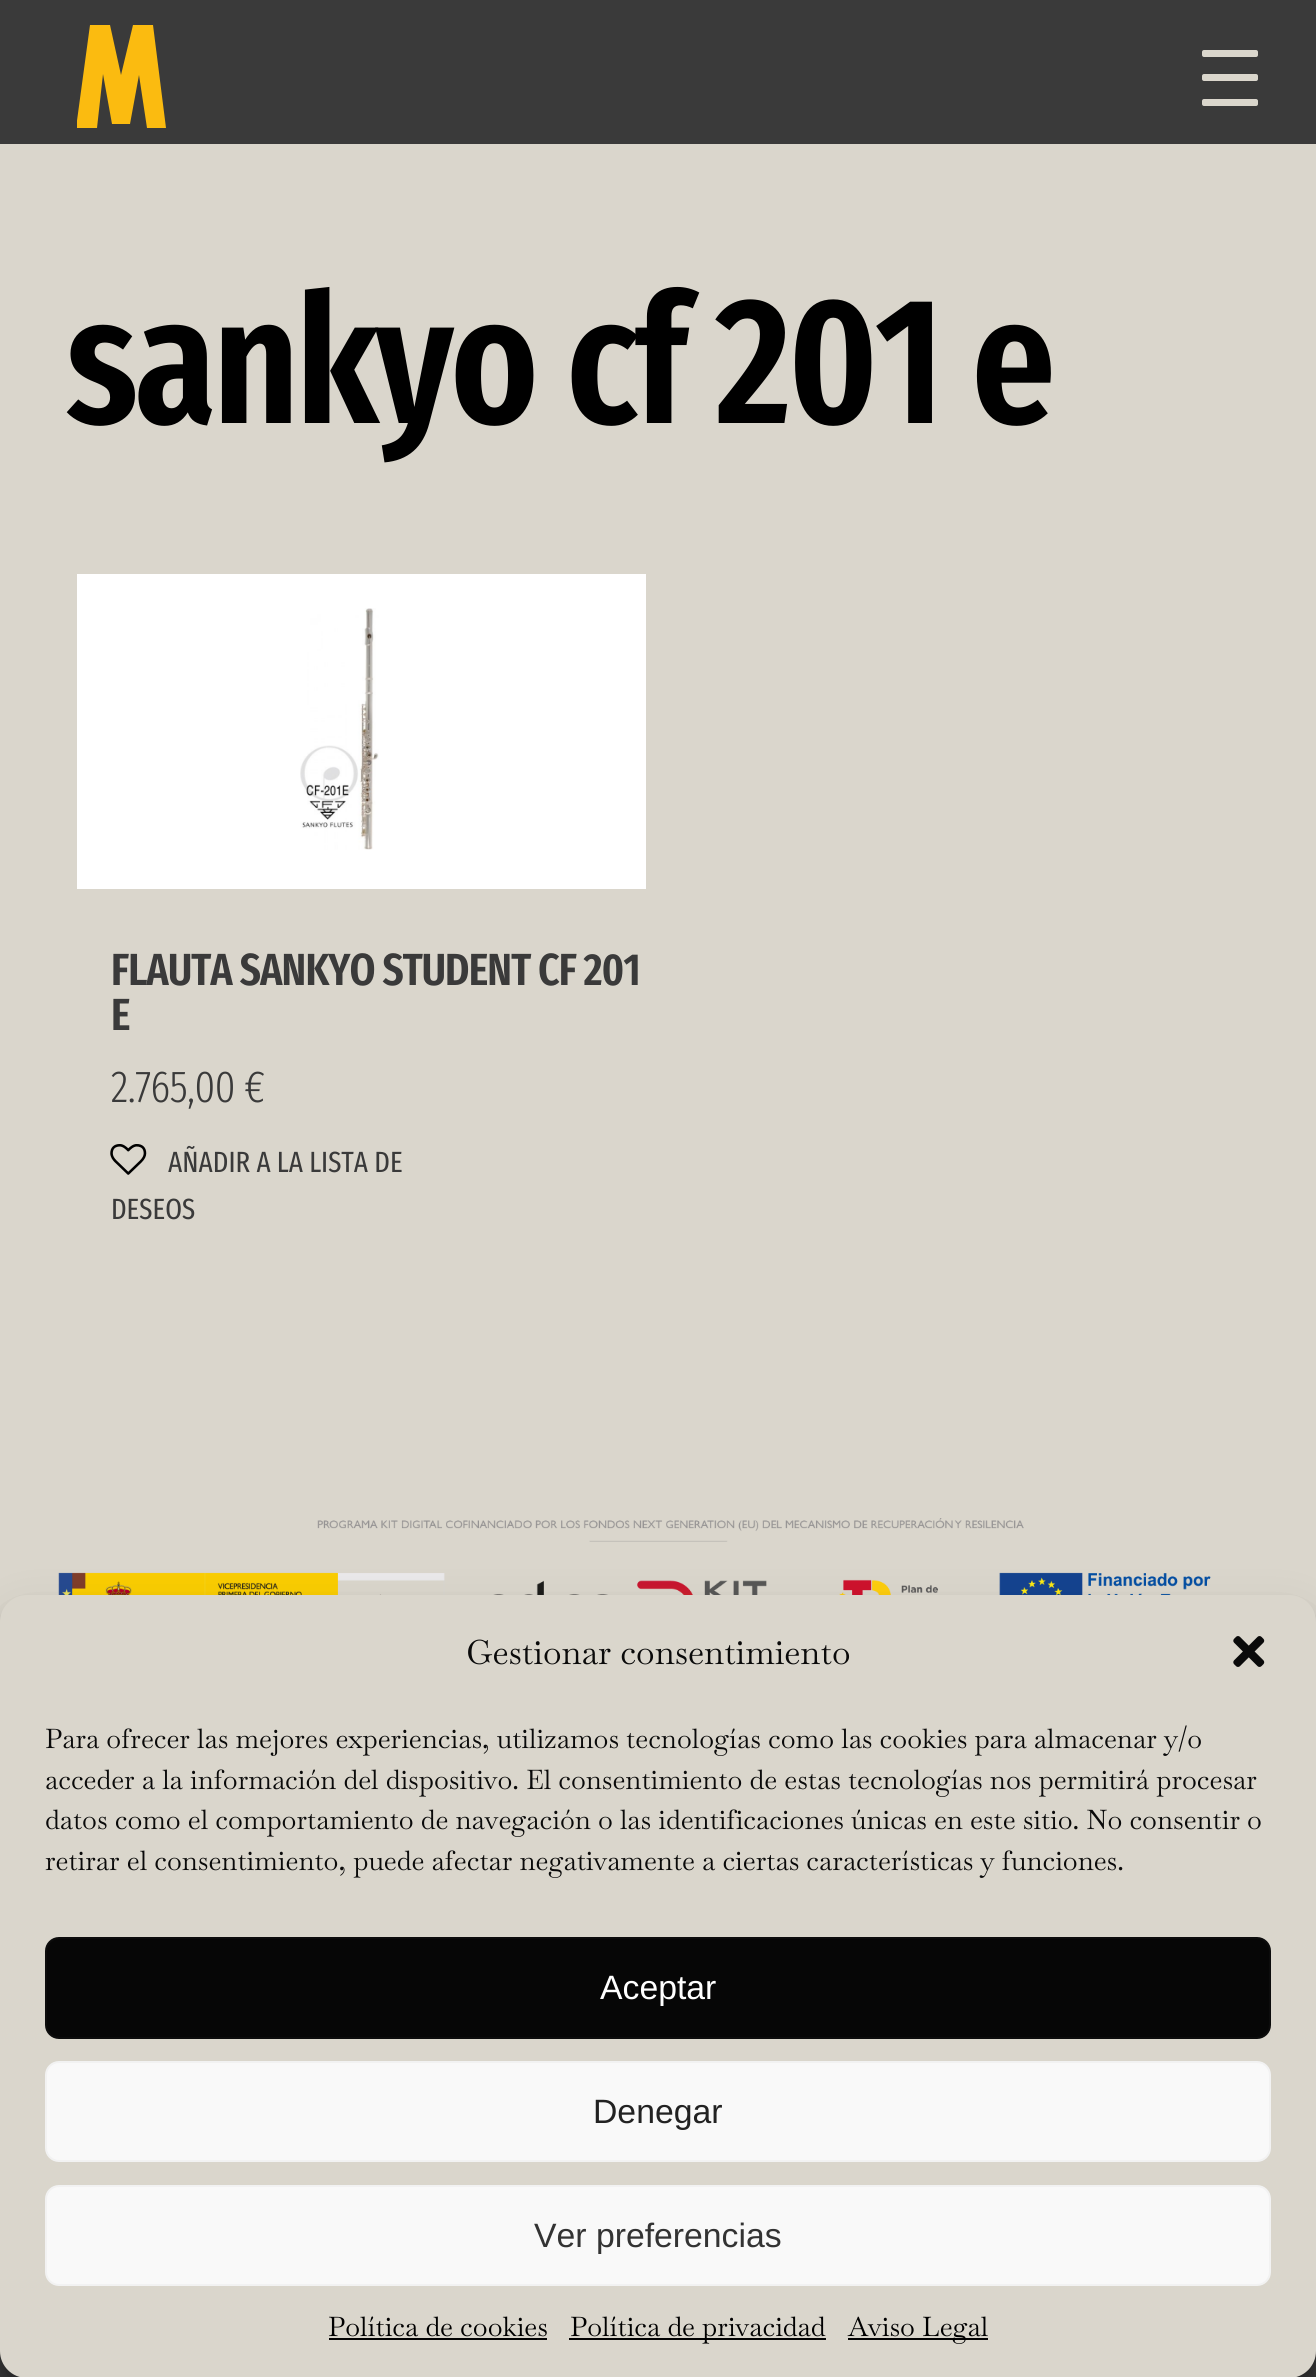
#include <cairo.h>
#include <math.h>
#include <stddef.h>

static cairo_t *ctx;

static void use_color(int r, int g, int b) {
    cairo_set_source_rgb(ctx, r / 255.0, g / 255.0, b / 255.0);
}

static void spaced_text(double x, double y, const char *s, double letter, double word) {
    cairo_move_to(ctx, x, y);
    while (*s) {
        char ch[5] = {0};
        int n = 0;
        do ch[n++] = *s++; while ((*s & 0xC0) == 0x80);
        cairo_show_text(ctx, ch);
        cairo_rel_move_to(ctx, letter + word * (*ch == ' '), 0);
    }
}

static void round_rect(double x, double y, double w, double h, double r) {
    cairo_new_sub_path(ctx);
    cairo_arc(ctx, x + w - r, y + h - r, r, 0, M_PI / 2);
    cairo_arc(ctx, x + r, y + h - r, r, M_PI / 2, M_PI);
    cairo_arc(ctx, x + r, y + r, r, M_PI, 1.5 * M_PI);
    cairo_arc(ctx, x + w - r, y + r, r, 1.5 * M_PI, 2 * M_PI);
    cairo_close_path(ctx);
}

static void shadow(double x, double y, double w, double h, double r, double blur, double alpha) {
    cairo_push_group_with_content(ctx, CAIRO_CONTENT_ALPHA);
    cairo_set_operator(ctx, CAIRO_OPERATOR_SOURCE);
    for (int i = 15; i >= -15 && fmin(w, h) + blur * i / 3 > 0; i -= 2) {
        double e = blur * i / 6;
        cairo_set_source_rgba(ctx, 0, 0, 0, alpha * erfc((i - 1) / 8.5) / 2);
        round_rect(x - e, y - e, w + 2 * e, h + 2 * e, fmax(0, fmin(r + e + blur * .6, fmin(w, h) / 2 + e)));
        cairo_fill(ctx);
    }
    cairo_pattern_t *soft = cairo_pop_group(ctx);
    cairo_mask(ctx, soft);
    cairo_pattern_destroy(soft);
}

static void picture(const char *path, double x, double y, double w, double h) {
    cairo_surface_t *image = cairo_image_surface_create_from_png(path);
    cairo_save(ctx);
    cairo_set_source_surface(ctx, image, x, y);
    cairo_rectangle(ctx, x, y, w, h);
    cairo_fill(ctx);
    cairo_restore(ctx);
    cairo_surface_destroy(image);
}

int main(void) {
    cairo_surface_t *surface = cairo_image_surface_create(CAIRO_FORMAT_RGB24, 1316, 2377);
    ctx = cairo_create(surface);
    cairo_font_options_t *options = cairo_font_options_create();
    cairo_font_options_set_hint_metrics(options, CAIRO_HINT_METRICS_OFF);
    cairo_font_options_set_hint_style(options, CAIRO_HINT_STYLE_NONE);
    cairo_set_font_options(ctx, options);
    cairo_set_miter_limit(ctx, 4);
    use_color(218, 214, 204);
    cairo_paint(ctx);
    use_color(58, 58, 58);
    cairo_rectangle(ctx, 0, 0, 1316, 144);
    cairo_fill(ctx);
    cairo_save(ctx);
    cairo_rectangle(ctx, 77, 25, 90, 103);
    cairo_clip(ctx);
    use_color(251, 187, 16);
    cairo_new_path(ctx);
    cairo_move_to(ctx, 133, 25);
    cairo_line_to(ctx, 121, 75);
    cairo_line_to(ctx, 110, 25);
    cairo_line_to(ctx, 90, 25);
    cairo_line_to(ctx, 76, 128);
    cairo_line_to(ctx, 97, 128);
    cairo_line_to(ctx, 103, 74);
    cairo_line_to(ctx, 112, 124);
    cairo_line_to(ctx, 130, 124);
    cairo_line_to(ctx, 139, 75);
    cairo_line_to(ctx, 147, 128);
    cairo_line_to(ctx, 166, 128);
    cairo_line_to(ctx, 153, 25);
    cairo_close_path(ctx);
    cairo_fill(ctx);
    cairo_restore(ctx);
    use_color(218, 214, 204);
    round_rect(1202, 50, 56, 7, 2);
    cairo_fill(ctx);
    round_rect(1202, 74, 56, 7, 2);
    cairo_fill(ctx);
    round_rect(1202, 99, 56, 7, 2);
    cairo_fill(ctx);
    cairo_select_font_face(ctx, "Fira Sans Extra Condensed SemiBold", CAIRO_FONT_SLANT_NORMAL, CAIRO_FONT_WEIGHT_NORMAL);
    cairo_set_font_size(ctx, 180);
    use_color(0, 0, 0);
    spaced_text(66, 423, "sankyo cf 201 e", -3.6, 0);
    use_color(255, 255, 255);
    cairo_rectangle(ctx, 77, 574, 569, 315);
    cairo_fill(ctx);
    picture("img1.png", 300, 608, 79, 242);
    cairo_set_font_size(ctx, 45);
    use_color(58, 58, 58);
    spaced_text(111, 985, "FLAUTA SANKYO STUDENT CF 201", -0.9, 0);
    spaced_text(111, 1030, "E", -0.9, 0);
    cairo_select_font_face(ctx, "Fira Sans Extra Condensed Light", CAIRO_FONT_SLANT_NORMAL, CAIRO_FONT_WEIGHT_NORMAL);
    spaced_text(111, 1102, "2.765,00 €", -0.9, 0);
    picture("img2.png", 110, 1144, 37, 31);
    cairo_select_font_face(ctx, "Fira Sans Extra Condensed", CAIRO_FONT_SLANT_NORMAL, CAIRO_FONT_WEIGHT_NORMAL);
    cairo_set_font_size(ctx, 29.25);
    cairo_move_to(ctx, 168, 1172);
    cairo_show_text(ctx, "AÑADIR A LA LISTA DE");
    cairo_move_to(ctx, 111, 1219);
    cairo_show_text(ctx, "DESEOS");
    picture("img3.png", 58, 1518, 1153, 77);
    cairo_rectangle(ctx, 0, 2351, 1316, 26);
    cairo_fill(ctx);
    use_color(0, 0, 0);
    shadow(0, 1609, 1316, 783, 27, 7, 0.23);
    shadow(0, 1618, 1316, 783, 27, 22.5, 0.19);
    use_color(218, 214, 204);
    round_rect(0, 1595, 1316, 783, 27);
    cairo_fill(ctx);
    cairo_select_font_face(ctx, "Baskervville", CAIRO_FONT_SLANT_NORMAL, CAIRO_FONT_WEIGHT_NORMAL);
    cairo_set_font_size(ctx, 33.75);
    use_color(10, 10, 10);
    cairo_move_to(ctx, 466, 1664);
    cairo_show_text(ctx, "Gestionar consentimiento");
    picture("img4.png", 1233, 1636, 32, 31);
    cairo_set_font_size(ctx, 27);
    cairo_move_to(ctx, 45, 1748);
    cairo_show_text(ctx, "Para ofrecer las mejores experiencias, utilizamos tecnologías como las cookies para almacenar y/o");
    cairo_move_to(ctx, 45, 1789);
    cairo_show_text(ctx, "acceder a la información del dispositivo. El consentimiento de estas tecnologías nos permitirá procesar");
    cairo_move_to(ctx, 45, 1829);
    cairo_show_text(ctx, "datos como el comportamiento de navegación o las identificaciones únicas en este sitio. No consentir o");
    cairo_move_to(ctx, 45, 1870);
    cairo_show_text(ctx, "retirar el consentimiento, puede afectar negativamente a ciertas características y funciones.");
    use_color(6, 6, 6);
    round_rect(46, 1938, 1224, 100, 13);
    cairo_fill_preserve(ctx);
    use_color(12, 12, 12);
    cairo_stroke(ctx);
    cairo_select_font_face(ctx, "Liberation Sans", CAIRO_FONT_SLANT_NORMAL, CAIRO_FONT_WEIGHT_NORMAL);
    cairo_set_font_size(ctx, 33.75);
    use_color(255, 255, 255);
    cairo_move_to(ctx, 600, 1999);
    cairo_show_text(ctx, "Aceptar");
    use_color(249, 249, 249);
    round_rect(46, 2062, 1224, 99, 13);
    cairo_fill_preserve(ctx);
    use_color(242, 242, 242);
    cairo_stroke(ctx);
    use_color(34, 34, 34);
    cairo_move_to(ctx, 593, 2123);
    cairo_show_text(ctx, "Denegar");
    use_color(249, 249, 249);
    round_rect(46, 2186, 1224, 99, 13);
    cairo_fill_preserve(ctx);
    use_color(242, 242, 242);
    cairo_stroke(ctx);
    use_color(51, 51, 51);
    cairo_move_to(ctx, 534, 2247);
    cairo_show_text(ctx, "Ver preferencias");
    cairo_select_font_face(ctx, "Baskervville", CAIRO_FONT_SLANT_NORMAL, CAIRO_FONT_WEIGHT_NORMAL);
    cairo_set_font_size(ctx, 27);
    use_color(0, 0, 0);
    cairo_move_to(ctx, 328, 2336);
    cairo_show_text(ctx, "Política de cookies");
    use_color(4, 4, 4);
    cairo_rectangle(ctx, 329, 2338, 218, 2);
    cairo_fill(ctx);
    cairo_rectangle(ctx, 569, 2338, 257, 2);
    cairo_fill(ctx);
    use_color(0, 0, 0);
    cairo_move_to(ctx, 570, 2336);
    cairo_show_text(ctx, "Política de privacidad");
    use_color(4, 4, 4);
    cairo_rectangle(ctx, 848, 2338, 140, 2);
    cairo_fill(ctx);
    use_color(0, 0, 0);
    cairo_move_to(ctx, 848, 2336);
    cairo_show_text(ctx, "Aviso Legal");
    cairo_surface_write_to_png(surface, "result.png");
    cairo_font_options_destroy(options);
    cairo_destroy(ctx);
    cairo_surface_destroy(surface);
    return 0;
}
